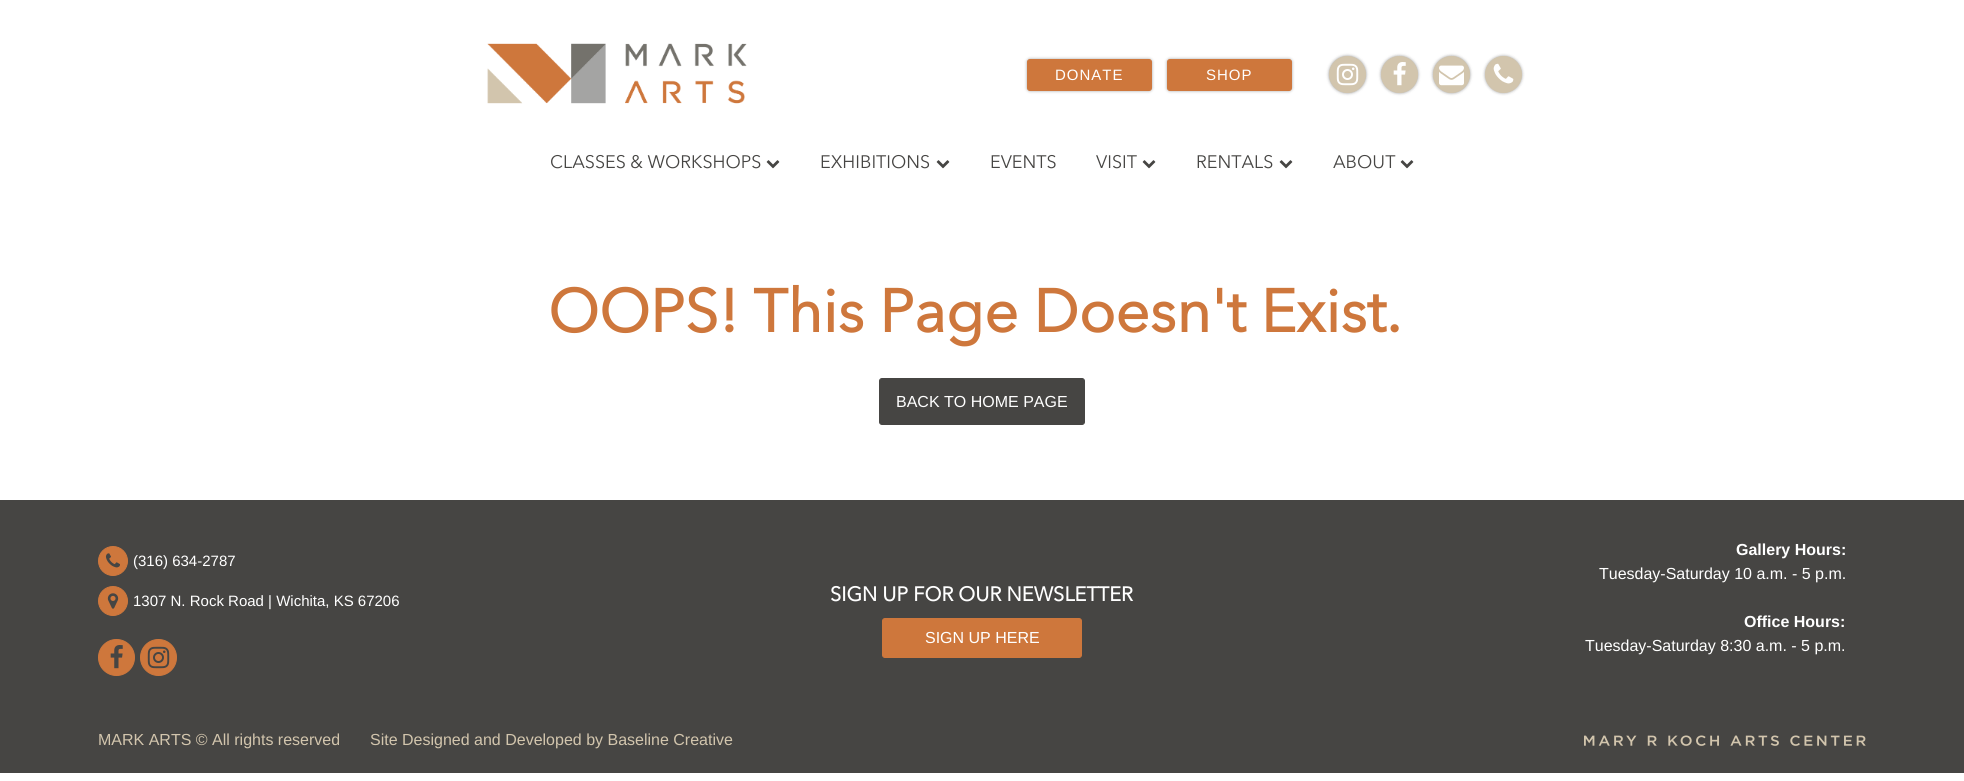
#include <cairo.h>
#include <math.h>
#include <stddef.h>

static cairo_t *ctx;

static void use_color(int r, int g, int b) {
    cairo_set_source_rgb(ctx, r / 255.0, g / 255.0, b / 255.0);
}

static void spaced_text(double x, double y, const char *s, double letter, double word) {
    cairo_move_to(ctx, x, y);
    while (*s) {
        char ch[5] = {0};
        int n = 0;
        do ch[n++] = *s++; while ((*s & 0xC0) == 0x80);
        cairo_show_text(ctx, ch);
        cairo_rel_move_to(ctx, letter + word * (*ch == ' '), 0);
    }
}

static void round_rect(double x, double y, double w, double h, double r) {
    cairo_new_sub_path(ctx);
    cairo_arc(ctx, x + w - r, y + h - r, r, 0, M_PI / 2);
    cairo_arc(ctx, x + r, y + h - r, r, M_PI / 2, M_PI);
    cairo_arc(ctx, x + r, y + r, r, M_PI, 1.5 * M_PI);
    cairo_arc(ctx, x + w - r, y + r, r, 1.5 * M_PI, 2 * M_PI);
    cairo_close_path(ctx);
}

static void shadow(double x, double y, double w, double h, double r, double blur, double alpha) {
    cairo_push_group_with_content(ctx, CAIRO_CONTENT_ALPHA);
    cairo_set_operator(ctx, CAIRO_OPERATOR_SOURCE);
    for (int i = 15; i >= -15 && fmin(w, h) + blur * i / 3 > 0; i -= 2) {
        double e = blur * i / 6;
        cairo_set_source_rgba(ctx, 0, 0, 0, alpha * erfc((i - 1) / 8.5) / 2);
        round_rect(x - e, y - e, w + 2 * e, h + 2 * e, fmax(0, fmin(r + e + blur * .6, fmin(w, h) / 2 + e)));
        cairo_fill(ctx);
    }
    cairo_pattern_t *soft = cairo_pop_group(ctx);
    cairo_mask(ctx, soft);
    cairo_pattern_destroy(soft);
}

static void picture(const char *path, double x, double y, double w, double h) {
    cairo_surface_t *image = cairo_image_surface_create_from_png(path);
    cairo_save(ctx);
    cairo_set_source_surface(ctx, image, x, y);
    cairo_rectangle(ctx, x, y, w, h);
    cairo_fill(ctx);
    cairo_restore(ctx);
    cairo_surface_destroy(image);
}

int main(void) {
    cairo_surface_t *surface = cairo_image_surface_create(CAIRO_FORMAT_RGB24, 1964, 781);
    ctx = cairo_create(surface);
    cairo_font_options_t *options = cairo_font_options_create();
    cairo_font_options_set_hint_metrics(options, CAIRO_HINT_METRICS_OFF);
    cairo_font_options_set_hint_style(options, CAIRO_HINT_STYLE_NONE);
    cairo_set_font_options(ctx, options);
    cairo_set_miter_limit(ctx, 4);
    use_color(255, 255, 255);
    cairo_paint(ctx);
    picture("img1.png", 487, 43, 260, 61);
    use_color(0, 0, 0);
    shadow(1027, 59, 125, 32, 3, 1.5, 0.35);
    use_color(206, 119, 60);
    round_rect(1027.5, 59.5, 124, 31, 2.5);
    cairo_fill_preserve(ctx);
    cairo_set_line_width(ctx, 1);
    cairo_stroke(ctx);
    cairo_select_font_face(ctx, "Liberation Sans", CAIRO_FONT_SLANT_NORMAL, CAIRO_FONT_WEIGHT_NORMAL);
    cairo_set_font_size(ctx, 15);
    use_color(255, 255, 255);
    spaced_text(1055, 80, "DONATE", 1, 0);
    use_color(0, 0, 0);
    shadow(1167, 59, 125, 32, 3, 1.5, 0.35);
    use_color(206, 119, 60);
    round_rect(1167.5, 59.5, 124, 31, 2.5);
    cairo_fill_preserve(ctx);
    cairo_stroke(ctx);
    use_color(255, 255, 255);
    spaced_text(1206, 80, "SHOP", 1, 0);
    use_color(0, 0, 0);
    shadow(1329, 56, 37, 37, 18.5, 1.5, 0.41);
    use_color(210, 197, 173);
    cairo_arc(ctx, 1347.5, 74.5, 18, 0, 2 * M_PI);
    cairo_fill_preserve(ctx);
    cairo_stroke(ctx);
    picture("img2.png", 1336, 63, 23, 23);
    use_color(0, 0, 0);
    shadow(1381, 56, 37, 37, 18.5, 1.5, 0.4);
    use_color(210, 197, 173);
    cairo_arc(ctx, 1399.5, 74.5, 18, 0, 2 * M_PI);
    cairo_fill_preserve(ctx);
    cairo_stroke(ctx);
    picture("img3.png", 1393, 62, 13, 24);
    use_color(0, 0, 0);
    shadow(1433, 56, 37, 37, 18.5, 1.5, 0.4);
    use_color(210, 197, 173);
    cairo_arc(ctx, 1451.5, 74.5, 18, 0, 2 * M_PI);
    cairo_fill_preserve(ctx);
    cairo_stroke(ctx);
    picture("img4.png", 1439, 65, 25, 21);
    use_color(0, 0, 0);
    shadow(1485, 56, 37, 37, 18.5, 1.5, 0.36);
    use_color(210, 197, 173);
    cairo_arc(ctx, 1503.5, 74.5, 18, 0, 2 * M_PI);
    cairo_fill_preserve(ctx);
    cairo_stroke(ctx);
    picture("img5.png", 1493, 63, 21, 21);
    cairo_select_font_face(ctx, "Avenir Next", CAIRO_FONT_SLANT_NORMAL, CAIRO_FONT_WEIGHT_NORMAL);
    cairo_set_font_size(ctx, 18);
    use_color(70, 69, 67);
    cairo_move_to(ctx, 550, 168);
    cairo_show_text(ctx, "CLASSES & WORKSHOPS");
    picture("img6.png", 766, 160, 14, 9);
    cairo_move_to(ctx, 820, 168);
    cairo_show_text(ctx, "EXHIBITIONS");
    picture("img6.png", 936, 160, 14, 9);
    cairo_move_to(ctx, 990, 168);
    cairo_show_text(ctx, "EVENTS");
    cairo_move_to(ctx, 1096, 168);
    cairo_show_text(ctx, "VISIT");
    picture("img6.png", 1142, 160, 14, 9);
    cairo_move_to(ctx, 1196, 168);
    cairo_show_text(ctx, "RENTALS");
    picture("img6.png", 1279, 160, 14, 9);
    cairo_move_to(ctx, 1333, 168);
    cairo_show_text(ctx, "ABOUT");
    picture("img6.png", 1400, 160, 14, 9);
    cairo_select_font_face(ctx, "Avenir Next", CAIRO_FONT_SLANT_NORMAL, CAIRO_FONT_WEIGHT_BOLD);
    cairo_set_font_size(ctx, 60);
    use_color(206, 119, 60);
    cairo_move_to(ctx, 548, 332);
    cairo_show_text(ctx, "OOPS! This Page Doesn't Exist.");
    use_color(70, 69, 67);
    round_rect(879.5, 378.5, 205, 46, 2.5);
    cairo_fill_preserve(ctx);
    cairo_stroke(ctx);
    cairo_select_font_face(ctx, "Liberation Sans", CAIRO_FONT_SLANT_NORMAL, CAIRO_FONT_WEIGHT_NORMAL);
    cairo_set_font_size(ctx, 16);
    use_color(255, 255, 255);
    cairo_move_to(ctx, 896, 407);
    cairo_show_text(ctx, "BACK TO HOME PAGE");
    use_color(70, 69, 67);
    cairo_rectangle(ctx, 0, 500, 1964, 273);
    cairo_fill(ctx);
    use_color(206, 119, 60);
    cairo_arc(ctx, 113, 561, 14.5, 0, 2 * M_PI);
    cairo_fill_preserve(ctx);
    cairo_stroke(ctx);
    picture("img7.png", 105, 553, 15, 15);
    cairo_set_font_size(ctx, 15);
    use_color(255, 255, 255);
    cairo_move_to(ctx, 133, 566);
    cairo_show_text(ctx, "(316) 634-2787");
    use_color(206, 119, 60);
    cairo_new_path(ctx);
    cairo_arc(ctx, 113, 601, 14.5, 0, 2 * M_PI);
    cairo_fill_preserve(ctx);
    cairo_stroke(ctx);
    picture("img8.png", 107, 593, 12, 16);
    use_color(255, 255, 255);
    cairo_move_to(ctx, 133, 606);
    cairo_show_text(ctx, "1307 N. Rock Road | Wichita, KS 67206");
    use_color(206, 119, 60);
    cairo_new_path(ctx);
    cairo_arc(ctx, 116.5, 657.5, 18, 0, 2 * M_PI);
    cairo_fill_preserve(ctx);
    cairo_stroke(ctx);
    picture("img9.png", 110, 645, 13, 24);
    cairo_arc(ctx, 158.5, 657.5, 18, 0, 2 * M_PI);
    cairo_fill_preserve(ctx);
    cairo_stroke(ctx);
    picture("img10.png", 147, 646, 23, 23);
    cairo_select_font_face(ctx, "Avenir Next", CAIRO_FONT_SLANT_NORMAL, CAIRO_FONT_WEIGHT_BOLD);
    cairo_set_font_size(ctx, 20);
    use_color(255, 255, 255);
    cairo_move_to(ctx, 830, 601);
    cairo_show_text(ctx, "SIGN UP FOR OUR NEWSLETTER");
    use_color(206, 119, 60);
    round_rect(882.5, 618.5, 199, 39, 2.5);
    cairo_fill_preserve(ctx);
    cairo_stroke(ctx);
    cairo_select_font_face(ctx, "Liberation Sans", CAIRO_FONT_SLANT_NORMAL, CAIRO_FONT_WEIGHT_NORMAL);
    cairo_set_font_size(ctx, 16);
    use_color(255, 255, 255);
    cairo_move_to(ctx, 925, 643);
    cairo_show_text(ctx, "SIGN UP HERE");
    cairo_select_font_face(ctx, "Liberation Sans", CAIRO_FONT_SLANT_NORMAL, CAIRO_FONT_WEIGHT_BOLD);
    cairo_move_to(ctx, 1736, 555);
    cairo_show_text(ctx, "Gallery Hours:");
    cairo_select_font_face(ctx, "Liberation Sans", CAIRO_FONT_SLANT_NORMAL, CAIRO_FONT_WEIGHT_NORMAL);
    cairo_move_to(ctx, 1599, 579);
    cairo_show_text(ctx, "Tuesday-Saturday 10 a.m. - 5 p.m.");
    cairo_select_font_face(ctx, "Liberation Sans", CAIRO_FONT_SLANT_NORMAL, CAIRO_FONT_WEIGHT_BOLD);
    cairo_move_to(ctx, 1744, 627);
    cairo_show_text(ctx, "Office Hours:");
    cairo_select_font_face(ctx, "Liberation Sans", CAIRO_FONT_SLANT_NORMAL, CAIRO_FONT_WEIGHT_NORMAL);
    cairo_move_to(ctx, 1585, 651);
    cairo_show_text(ctx, "Tuesday-Saturday 8:30 a.m. - 5 p.m.");
    use_color(210, 197, 173);
    cairo_move_to(ctx, 98, 745);
    cairo_show_text(ctx, "MARK ARTS © All rights reserved");
    cairo_move_to(ctx, 370, 745);
    cairo_show_text(ctx, "Site Designed and Developed by Baseline Creative");
    picture("img11.png", 1584, 735, 282, 11);
    cairo_surface_write_to_png(surface, "result.png");
    cairo_font_options_destroy(options);
    cairo_destroy(ctx);
    cairo_surface_destroy(surface);
    return 0;
}
